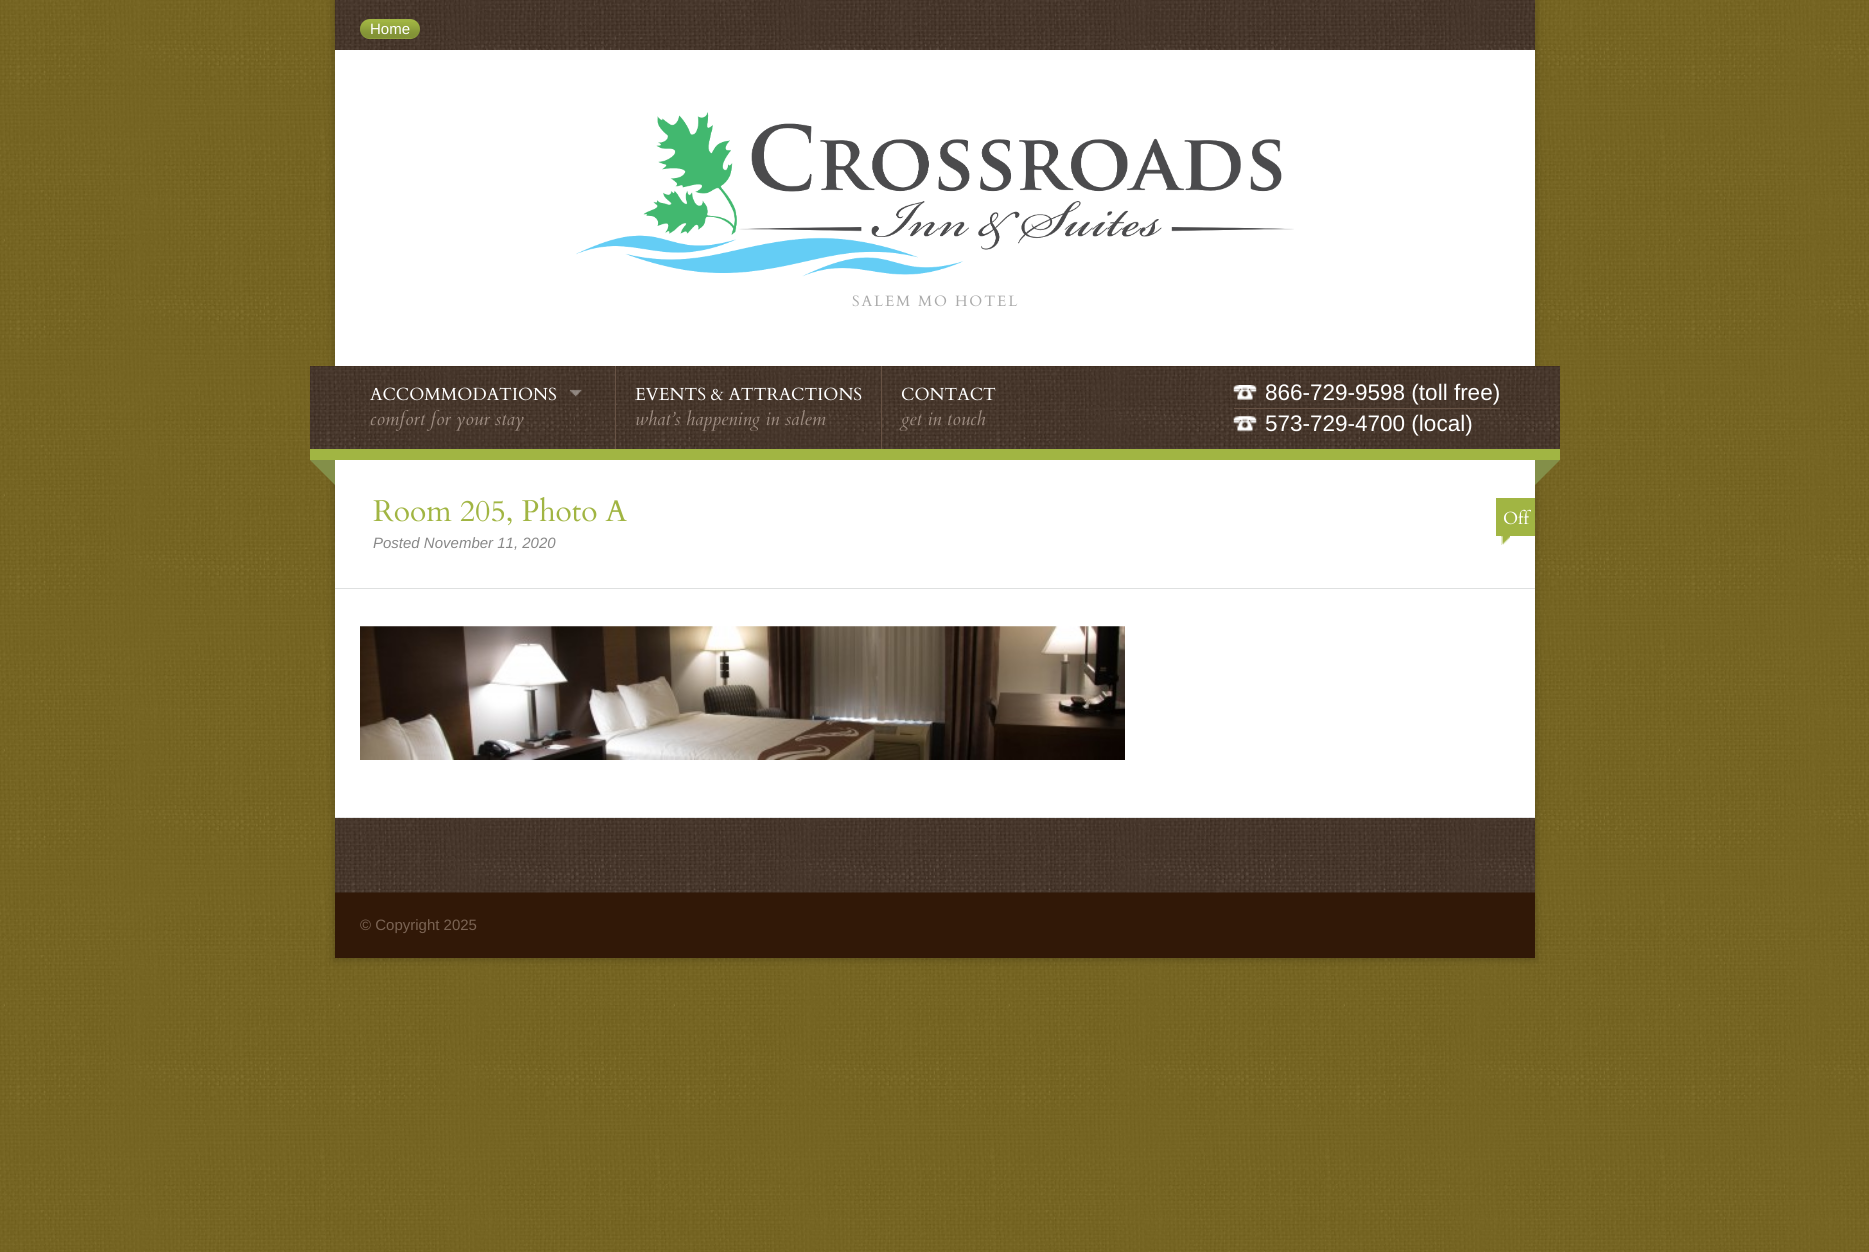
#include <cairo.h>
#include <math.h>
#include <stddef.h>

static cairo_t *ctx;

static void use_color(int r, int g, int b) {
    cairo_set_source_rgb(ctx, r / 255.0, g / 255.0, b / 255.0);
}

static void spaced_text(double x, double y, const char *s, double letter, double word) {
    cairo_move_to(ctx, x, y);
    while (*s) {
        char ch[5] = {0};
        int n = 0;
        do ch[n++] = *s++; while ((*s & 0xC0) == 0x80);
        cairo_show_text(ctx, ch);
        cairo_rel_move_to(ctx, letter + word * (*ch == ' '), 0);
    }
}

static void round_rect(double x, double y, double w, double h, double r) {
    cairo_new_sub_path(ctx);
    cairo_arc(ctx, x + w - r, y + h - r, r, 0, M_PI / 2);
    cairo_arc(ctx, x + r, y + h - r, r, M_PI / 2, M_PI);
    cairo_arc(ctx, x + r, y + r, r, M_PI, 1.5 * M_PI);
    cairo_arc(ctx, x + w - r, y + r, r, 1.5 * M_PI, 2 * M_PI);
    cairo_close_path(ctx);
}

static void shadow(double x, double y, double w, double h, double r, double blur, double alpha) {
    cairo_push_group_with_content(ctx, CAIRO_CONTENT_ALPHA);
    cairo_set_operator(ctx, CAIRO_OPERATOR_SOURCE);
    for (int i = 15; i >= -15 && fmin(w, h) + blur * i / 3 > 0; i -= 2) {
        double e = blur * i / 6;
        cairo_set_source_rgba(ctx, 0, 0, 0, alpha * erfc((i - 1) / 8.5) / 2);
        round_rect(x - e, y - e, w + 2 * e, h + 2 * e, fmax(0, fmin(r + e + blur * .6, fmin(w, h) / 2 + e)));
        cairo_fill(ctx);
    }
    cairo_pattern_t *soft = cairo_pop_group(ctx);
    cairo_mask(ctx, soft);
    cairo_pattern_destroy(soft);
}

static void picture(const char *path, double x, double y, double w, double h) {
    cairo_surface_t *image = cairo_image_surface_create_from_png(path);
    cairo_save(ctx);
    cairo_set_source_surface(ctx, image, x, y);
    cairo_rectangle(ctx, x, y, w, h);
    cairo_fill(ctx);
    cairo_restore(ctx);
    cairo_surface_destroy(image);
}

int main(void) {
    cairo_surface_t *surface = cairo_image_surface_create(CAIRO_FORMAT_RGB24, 1869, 1252);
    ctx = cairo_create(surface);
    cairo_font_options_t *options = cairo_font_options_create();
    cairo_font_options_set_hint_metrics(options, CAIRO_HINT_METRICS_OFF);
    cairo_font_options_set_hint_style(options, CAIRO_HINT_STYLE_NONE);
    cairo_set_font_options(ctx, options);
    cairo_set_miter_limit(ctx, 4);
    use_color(120, 99, 16);
    cairo_paint(ctx);
    picture("img1.png", 0, 0, 1869, 1252);
    use_color(0, 0, 0);
    shadow(334, 0, 1202, 960, 0, 4, 0.2);
    use_color(255, 255, 255);
    cairo_rectangle(ctx, 335, 50, 1200, 768);
    cairo_fill(ctx);
    use_color(49, 24, 7);
    cairo_rectangle(ctx, 335, 0, 1200, 50);
    cairo_fill(ctx);
    picture("img2.png", 335, 0, 1200, 50);
    use_color(161, 181, 67);
    round_rect(360, 19, 60, 20, 10);
    cairo_fill(ctx);
    picture("img3.png", 360, 22, 60, 17);
    cairo_select_font_face(ctx, "Liberation Sans", CAIRO_FONT_SLANT_NORMAL, CAIRO_FONT_WEIGHT_NORMAL);
    cairo_set_font_size(ctx, 15);
    use_color(255, 255, 255);
    cairo_move_to(ctx, 370, 34);
    cairo_show_text(ctx, "Home");
    picture("img4.png", 576, 112, 718, 165);
    cairo_select_font_face(ctx, "Cardo", CAIRO_FONT_SLANT_NORMAL, CAIRO_FONT_WEIGHT_NORMAL);
    use_color(170, 170, 170);
    spaced_text(852, 306, "SALEM MO HOTEL", 1.9, 0);
    use_color(49, 24, 7);
    cairo_rectangle(ctx, 310, 366, 1250, 83);
    cairo_fill(ctx);
    picture("img5.png", 310, 366, 1250, 83);
    use_color(161, 181, 67);
    cairo_rectangle(ctx, 310, 449, 1250, 11);
    cairo_fill(ctx);
    use_color(104, 83, 69);
    cairo_rectangle(ctx, 615, 366, 1, 83);
    cairo_fill(ctx);
    cairo_set_font_size(ctx, 17.5);
    use_color(255, 255, 255);
    cairo_move_to(ctx, 370, 400);
    cairo_show_text(ctx, "ACCOMMODATIONS");
    picture("img6.png", 570, 389, 12, 8);
    cairo_select_font_face(ctx, "Cardo", CAIRO_FONT_SLANT_ITALIC, CAIRO_FONT_WEIGHT_NORMAL);
    cairo_set_font_size(ctx, 18.75);
    use_color(157, 140, 129);
    cairo_move_to(ctx, 370, 425);
    cairo_show_text(ctx, "comfort for your stay");
    use_color(104, 83, 69);
    cairo_rectangle(ctx, 881, 366, 1, 83);
    cairo_fill(ctx);
    cairo_select_font_face(ctx, "Cardo", CAIRO_FONT_SLANT_NORMAL, CAIRO_FONT_WEIGHT_NORMAL);
    cairo_set_font_size(ctx, 17.5);
    use_color(255, 255, 255);
    cairo_move_to(ctx, 635, 400);
    cairo_show_text(ctx, "EVENTS & ATTRACTIONS");
    cairo_select_font_face(ctx, "Cardo", CAIRO_FONT_SLANT_ITALIC, CAIRO_FONT_WEIGHT_NORMAL);
    cairo_set_font_size(ctx, 18.75);
    use_color(157, 140, 129);
    cairo_move_to(ctx, 635, 425);
    cairo_show_text(ctx, "what’s happening in salem");
    cairo_select_font_face(ctx, "Cardo", CAIRO_FONT_SLANT_NORMAL, CAIRO_FONT_WEIGHT_NORMAL);
    cairo_set_font_size(ctx, 17.5);
    use_color(255, 255, 255);
    cairo_move_to(ctx, 901, 400);
    cairo_show_text(ctx, "CONTACT");
    cairo_select_font_face(ctx, "Cardo", CAIRO_FONT_SLANT_ITALIC, CAIRO_FONT_WEIGHT_NORMAL);
    cairo_set_font_size(ctx, 18.75);
    use_color(157, 140, 129);
    cairo_move_to(ctx, 901, 425);
    cairo_show_text(ctx, "get in touch");
    picture("img7.png", 1233, 385, 24, 15);
    use_color(104, 83, 69);
    cairo_rectangle(ctx, 1234, 408, 266, 1);
    cairo_fill(ctx);
    cairo_select_font_face(ctx, "Liberation Sans", CAIRO_FONT_SLANT_NORMAL, CAIRO_FONT_WEIGHT_NORMAL);
    cairo_set_font_size(ctx, 22.5);
    use_color(255, 255, 255);
    cairo_move_to(ctx, 1265, 400);
    cairo_show_text(ctx, "866-729-9598 (toll free)");
    picture("img8.png", 1233, 416, 24, 16);
    cairo_move_to(ctx, 1265, 431);
    cairo_show_text(ctx, "573-729-4700 (local)");
    use_color(131, 143, 73);
    cairo_new_path(ctx);
    cairo_move_to(ctx, 310, 460);
    cairo_line_to(ctx, 335, 460);
    cairo_line_to(ctx, 335, 485);
    cairo_close_path(ctx);
    cairo_fill(ctx);
    cairo_new_path(ctx);
    cairo_move_to(ctx, 1535, 460);
    cairo_line_to(ctx, 1560, 460);
    cairo_line_to(ctx, 1535, 485);
    cairo_close_path(ctx);
    cairo_fill(ctx);
    use_color(222, 224, 224);
    cairo_rectangle(ctx, 335, 588, 1200, 1);
    cairo_fill(ctx);
    cairo_select_font_face(ctx, "Cardo", CAIRO_FONT_SLANT_NORMAL, CAIRO_FONT_WEIGHT_NORMAL);
    cairo_set_font_size(ctx, 30);
    use_color(161, 181, 67);
    cairo_move_to(ctx, 373, 521);
    cairo_show_text(ctx, "Room 205, Photo A");
    cairo_select_font_face(ctx, "Liberation Sans", CAIRO_FONT_SLANT_ITALIC, CAIRO_FONT_WEIGHT_NORMAL);
    cairo_set_font_size(ctx, 15);
    use_color(136, 136, 136);
    cairo_move_to(ctx, 373, 548);
    cairo_show_text(ctx, "Posted November 11, 2020");
    use_color(161, 181, 67);
    cairo_rectangle(ctx, 1496, 498, 39, 38);
    cairo_fill(ctx);
    cairo_select_font_face(ctx, "Cardo", CAIRO_FONT_SLANT_NORMAL, CAIRO_FONT_WEIGHT_NORMAL);
    cairo_set_font_size(ctx, 17.5);
    use_color(255, 255, 255);
    cairo_move_to(ctx, 1503, 524);
    cairo_show_text(ctx, "Off");
    use_color(161, 181, 67);
    cairo_rectangle(ctx, 1501, 536, 9, 9);
    cairo_fill(ctx);
    picture("img9.png", 1501, 536, 9, 9);
    picture("img10.png", 360, 626, 765, 134);
    use_color(49, 24, 7);
    cairo_rectangle(ctx, 335, 818, 1200, 140);
    cairo_fill(ctx);
    picture("img11.png", 335, 817, 1200, 76);
    cairo_select_font_face(ctx, "Liberation Sans", CAIRO_FONT_SLANT_NORMAL, CAIRO_FONT_WEIGHT_NORMAL);
    cairo_set_font_size(ctx, 15);
    use_color(122, 99, 83);
    cairo_move_to(ctx, 360, 930);
    cairo_show_text(ctx, "© Copyright 2025");
    cairo_surface_write_to_png(surface, "result.png");
    cairo_font_options_destroy(options);
    cairo_destroy(ctx);
    cairo_surface_destroy(surface);
    return 0;
}
